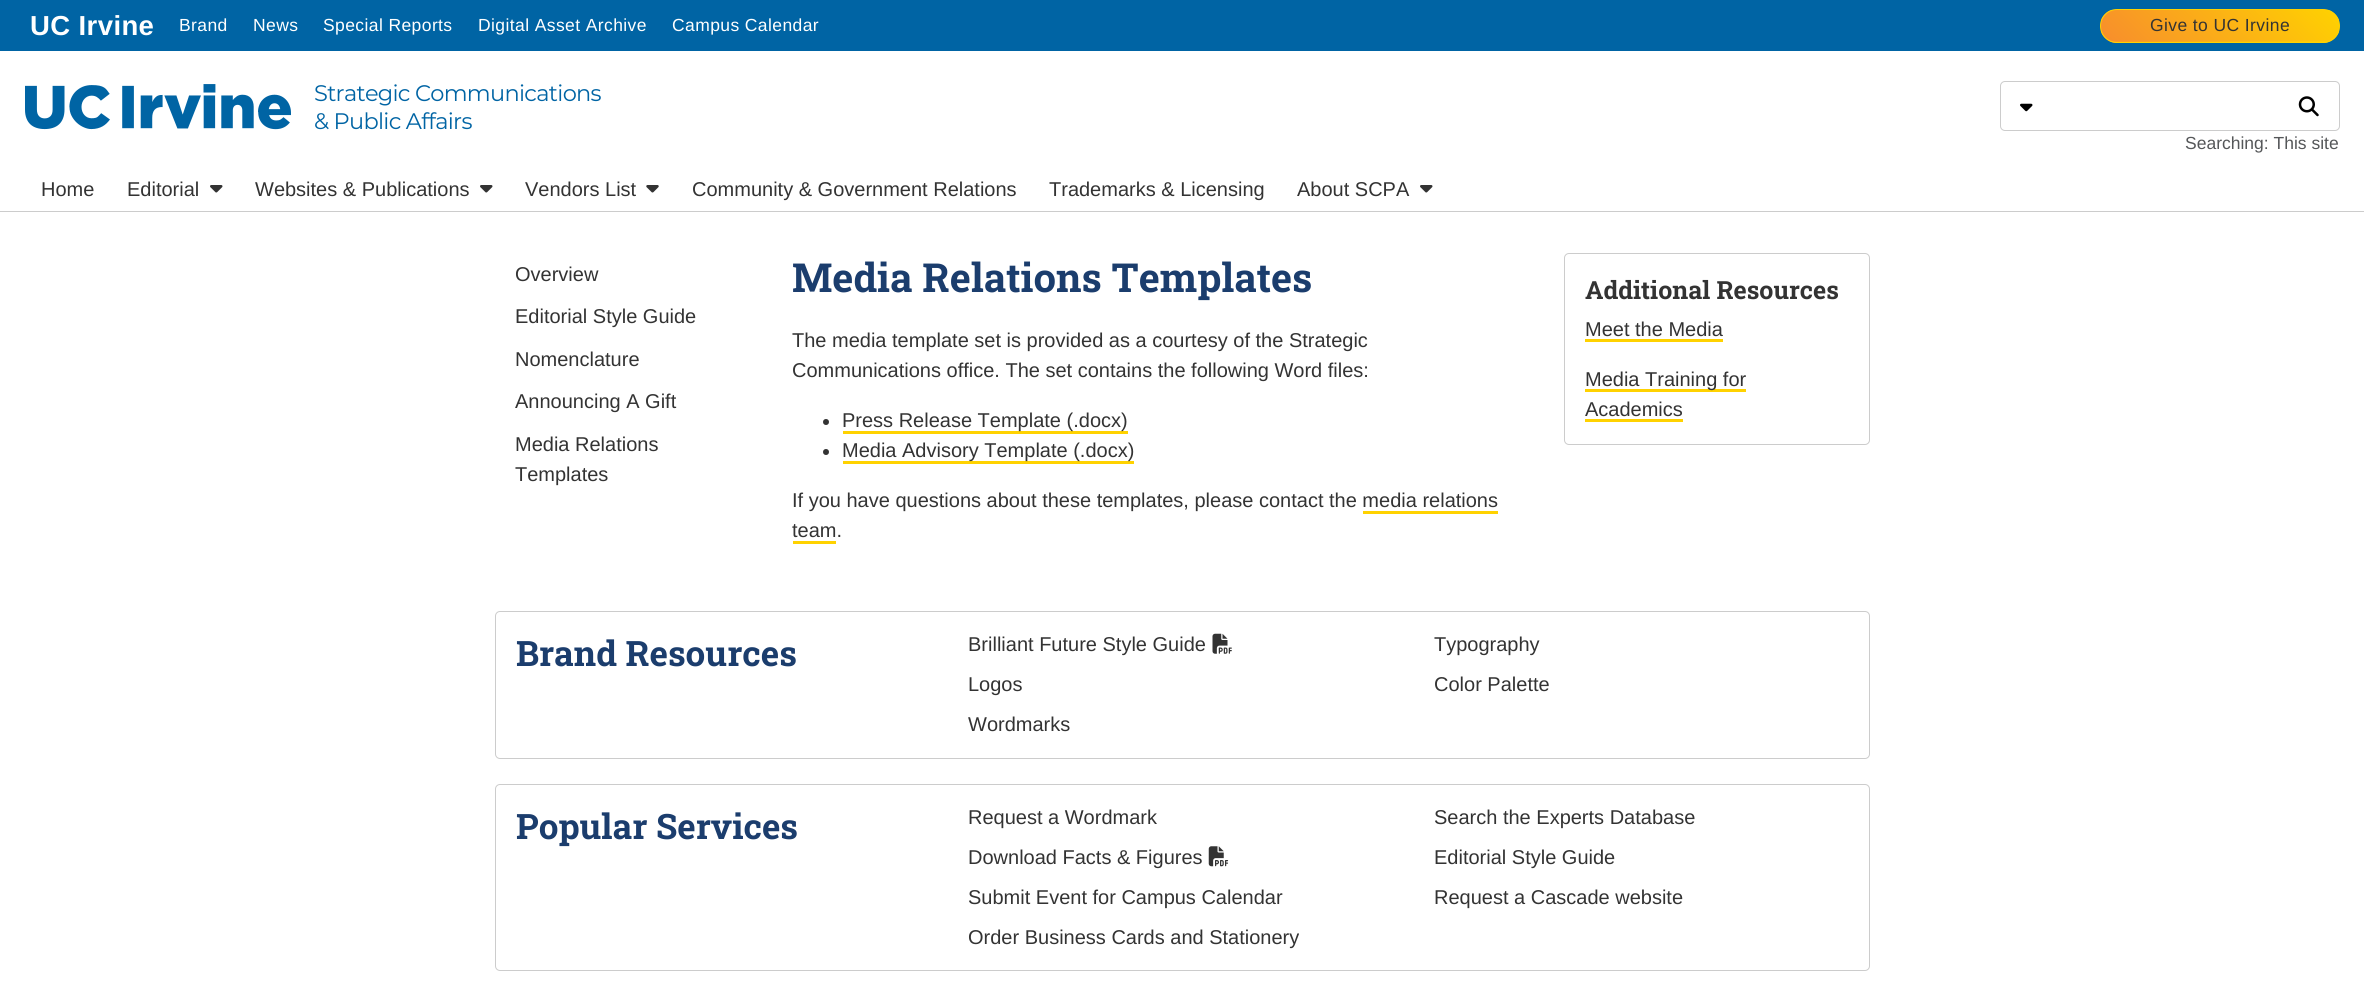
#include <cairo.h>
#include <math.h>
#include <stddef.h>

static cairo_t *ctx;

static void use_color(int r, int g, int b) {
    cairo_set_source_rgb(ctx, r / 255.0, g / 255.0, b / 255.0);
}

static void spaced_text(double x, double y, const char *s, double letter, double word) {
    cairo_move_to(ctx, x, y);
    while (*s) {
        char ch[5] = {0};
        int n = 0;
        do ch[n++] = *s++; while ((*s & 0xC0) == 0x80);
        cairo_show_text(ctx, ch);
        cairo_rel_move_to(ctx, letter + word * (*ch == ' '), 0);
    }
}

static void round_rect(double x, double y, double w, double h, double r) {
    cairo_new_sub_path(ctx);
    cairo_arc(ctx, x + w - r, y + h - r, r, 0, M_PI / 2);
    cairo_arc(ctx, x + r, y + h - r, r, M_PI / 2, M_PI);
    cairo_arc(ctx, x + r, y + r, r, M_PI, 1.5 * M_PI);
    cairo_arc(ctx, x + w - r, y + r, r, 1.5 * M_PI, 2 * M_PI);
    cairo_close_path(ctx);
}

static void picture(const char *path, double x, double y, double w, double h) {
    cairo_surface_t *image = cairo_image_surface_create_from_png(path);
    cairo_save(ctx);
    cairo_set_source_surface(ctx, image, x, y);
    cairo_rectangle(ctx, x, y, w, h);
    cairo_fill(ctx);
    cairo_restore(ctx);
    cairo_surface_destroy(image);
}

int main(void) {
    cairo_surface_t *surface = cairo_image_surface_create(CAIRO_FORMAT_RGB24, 2364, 981);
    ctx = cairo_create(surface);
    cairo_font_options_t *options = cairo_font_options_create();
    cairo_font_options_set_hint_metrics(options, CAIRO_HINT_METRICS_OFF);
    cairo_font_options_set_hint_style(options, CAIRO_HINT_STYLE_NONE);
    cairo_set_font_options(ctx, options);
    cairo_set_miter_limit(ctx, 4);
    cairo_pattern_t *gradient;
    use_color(255, 255, 255);
    cairo_paint(ctx);
    use_color(0, 100, 164);
    cairo_rectangle(ctx, 0, 0, 2364, 51);
    cairo_fill(ctx);
    cairo_select_font_face(ctx, "Liberation Sans", CAIRO_FONT_SLANT_NORMAL, CAIRO_FONT_WEIGHT_BOLD);
    cairo_set_font_size(ctx, 27.5);
    use_color(255, 255, 255);
    spaced_text(30, 35, "UC Irvine", 0.4, 0);
    cairo_select_font_face(ctx, "Liberation Sans", CAIRO_FONT_SLANT_NORMAL, CAIRO_FONT_WEIGHT_NORMAL);
    cairo_set_font_size(ctx, 17.5);
    spaced_text(179, 31, "Brand", 0.4, 0);
    spaced_text(253, 31, "News", 0.4, 0);
    spaced_text(323, 31, "Special Reports", 0.4, 0);
    spaced_text(478, 31, "Digital Asset Archive", 0.4, 0);
    spaced_text(672, 31, "Campus Calendar", 0.4, 0);
    cairo_save(ctx);
    round_rect(2100, 9, 240, 34, 17);
    cairo_clip(ctx);
    gradient = cairo_pattern_create_linear(2287, -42, 2153, 93);
    cairo_pattern_add_color_stop_rgba(gradient, 0, 1, 0.824, 0, 1);
    cairo_pattern_add_color_stop_rgba(gradient, 1, 0.969, 0.553, 0.176, 1);
    cairo_set_source(ctx, gradient);
    cairo_pattern_destroy(gradient);
    cairo_rectangle(ctx, 2101, 10, 238, 31);
    cairo_fill(ctx);
    gradient = cairo_pattern_create_linear(2287, -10, 2153, 124);
    cairo_pattern_add_color_stop_rgba(gradient, 0, 1, 0.824, 0, 1);
    cairo_pattern_add_color_stop_rgba(gradient, 1, 0.969, 0.553, 0.176, 1);
    cairo_set_source(ctx, gradient);
    cairo_pattern_destroy(gradient);
    cairo_rectangle(ctx, 2101, 41, 238, 2);
    cairo_fill(ctx);
    cairo_restore(ctx);
    round_rect(2100.5, 9.5, 239, 33, 16.5);
    use_color(255, 210, 0);
    cairo_set_line_width(ctx, 1);
    cairo_stroke(ctx);
    use_color(51, 51, 51);
    spaced_text(2150, 31, "Give to UC Irvine", 0.4, 0);
    picture("img1.png", 25, 84, 266, 46);
    cairo_select_font_face(ctx, "Montserrat Thin", CAIRO_FONT_SLANT_NORMAL, CAIRO_FONT_WEIGHT_NORMAL);
    cairo_set_font_size(ctx, 22.5);
    use_color(0, 100, 164);
    spaced_text(314, 101, "Strategic Communications", -0.7, 0);
    spaced_text(314, 129, "& Public Affairs", -0.7, 0);
    round_rect(2000.5, 81.5, 339, 49, 4.5);
    use_color(204, 204, 204);
    cairo_stroke(ctx);
    picture("img2.png", 2020, 103, 13, 9);
    picture("img3.png", 2298, 96, 21, 21);
    cairo_select_font_face(ctx, "Liberation Sans", CAIRO_FONT_SLANT_NORMAL, CAIRO_FONT_WEIGHT_NORMAL);
    cairo_set_font_size(ctx, 17.5);
    use_color(85, 87, 89);
    cairo_move_to(ctx, 2185, 149);
    cairo_show_text(ctx, "Searching: This site");
    use_color(204, 204, 204);
    cairo_rectangle(ctx, 0, 211, 2364, 1);
    cairo_fill(ctx);
    cairo_set_font_size(ctx, 20);
    use_color(51, 51, 51);
    cairo_move_to(ctx, 41, 196);
    cairo_show_text(ctx, "Home");
    cairo_move_to(ctx, 127, 196);
    cairo_show_text(ctx, "Editorial");
    picture("img4.png", 210, 185, 13, 8);
    cairo_move_to(ctx, 255, 196);
    cairo_show_text(ctx, "Websites & Publications");
    picture("img4.png", 480, 185, 13, 8);
    cairo_move_to(ctx, 525, 196);
    cairo_show_text(ctx, "Vendors List");
    picture("img5.png", 646, 185, 13, 8);
    cairo_move_to(ctx, 692, 196);
    cairo_show_text(ctx, "Community & Government Relations");
    cairo_move_to(ctx, 1049, 196);
    cairo_show_text(ctx, "Trademarks & Licensing");
    cairo_move_to(ctx, 1297, 196);
    cairo_show_text(ctx, "About SCPA");
    picture("img4.png", 1420, 185, 13, 8);
    cairo_move_to(ctx, 515, 281);
    cairo_show_text(ctx, "Overview");
    cairo_move_to(ctx, 515, 323);
    cairo_show_text(ctx, "Editorial Style Guide");
    cairo_move_to(ctx, 515, 366);
    cairo_show_text(ctx, "Nomenclature");
    cairo_move_to(ctx, 515, 408);
    cairo_show_text(ctx, "Announcing A Gift");
    cairo_move_to(ctx, 515, 451);
    cairo_show_text(ctx, "Media Relations");
    cairo_move_to(ctx, 515, 481);
    cairo_show_text(ctx, "Templates");
    cairo_select_font_face(ctx, "Roboto Slab", CAIRO_FONT_SLANT_NORMAL, CAIRO_FONT_WEIGHT_BOLD);
    cairo_set_font_size(ctx, 40);
    use_color(27, 61, 109);
    cairo_move_to(ctx, 792, 292);
    cairo_show_text(ctx, "Media Relations Templates");
    cairo_select_font_face(ctx, "Liberation Sans", CAIRO_FONT_SLANT_NORMAL, CAIRO_FONT_WEIGHT_NORMAL);
    cairo_set_font_size(ctx, 20);
    use_color(51, 51, 51);
    cairo_move_to(ctx, 792, 347);
    cairo_show_text(ctx, "The media template set is provided as a courtesy of the Strategic");
    cairo_move_to(ctx, 792, 377);
    cairo_show_text(ctx, "Communications office. The set contains the following Word files:");
    cairo_new_path(ctx);
    cairo_arc(ctx, 826, 422, 3, 0, 2 * M_PI);
    cairo_fill(ctx);
    use_color(255, 210, 0);
    cairo_rectangle(ctx, 843, 431, 285, 3);
    cairo_fill(ctx);
    use_color(51, 51, 51);
    cairo_move_to(ctx, 842, 427);
    cairo_show_text(ctx, "Press Release Template (.docx)");
    cairo_new_path(ctx);
    cairo_arc(ctx, 826, 452, 3, 0, 2 * M_PI);
    cairo_fill(ctx);
    use_color(255, 210, 0);
    cairo_rectangle(ctx, 843, 461, 291, 3);
    cairo_fill(ctx);
    use_color(51, 51, 51);
    cairo_move_to(ctx, 842, 457);
    cairo_show_text(ctx, "Media Advisory Template (.docx)");
    cairo_move_to(ctx, 792, 507);
    cairo_show_text(ctx, "If you have questions about these templates, please contact the media relations");
    cairo_move_to(ctx, 792, 537);
    cairo_show_text(ctx, "team.");
    use_color(255, 210, 0);
    cairo_rectangle(ctx, 1363, 511, 135, 3);
    cairo_fill(ctx);
    cairo_rectangle(ctx, 793, 541, 43, 3);
    cairo_fill(ctx);
    round_rect(1564.5, 253.5, 305, 191, 4.5);
    use_color(204, 204, 204);
    cairo_stroke(ctx);
    cairo_select_font_face(ctx, "Roboto Slab", CAIRO_FONT_SLANT_NORMAL, CAIRO_FONT_WEIGHT_BOLD);
    cairo_set_font_size(ctx, 25);
    use_color(51, 51, 51);
    cairo_move_to(ctx, 1585, 299);
    cairo_show_text(ctx, "Additional Resources");
    cairo_select_font_face(ctx, "Liberation Sans", CAIRO_FONT_SLANT_NORMAL, CAIRO_FONT_WEIGHT_NORMAL);
    cairo_set_font_size(ctx, 20);
    cairo_move_to(ctx, 1585, 336);
    cairo_show_text(ctx, "Meet the Media");
    use_color(255, 210, 0);
    cairo_rectangle(ctx, 1585, 339, 138, 3);
    cairo_fill(ctx);
    cairo_rectangle(ctx, 1585, 389, 161, 3);
    cairo_fill(ctx);
    use_color(51, 51, 51);
    cairo_move_to(ctx, 1585, 386);
    cairo_show_text(ctx, "Media Training for");
    cairo_move_to(ctx, 1585, 416);
    cairo_show_text(ctx, "Academics");
    use_color(255, 210, 0);
    cairo_rectangle(ctx, 1585, 419, 98, 3);
    cairo_fill(ctx);
    round_rect(495.5, 611.5, 1374, 147, 4.5);
    use_color(204, 204, 204);
    cairo_stroke(ctx);
    cairo_select_font_face(ctx, "Roboto Slab", CAIRO_FONT_SLANT_NORMAL, CAIRO_FONT_WEIGHT_BOLD);
    cairo_set_font_size(ctx, 35);
    use_color(27, 61, 109);
    cairo_move_to(ctx, 516, 666);
    cairo_show_text(ctx, "Brand Resources");
    cairo_select_font_face(ctx, "Liberation Sans", CAIRO_FONT_SLANT_NORMAL, CAIRO_FONT_WEIGHT_NORMAL);
    cairo_set_font_size(ctx, 20);
    use_color(51, 51, 51);
    cairo_move_to(ctx, 968, 651);
    cairo_show_text(ctx, "Brilliant Future Style Guide");
    picture("img6.png", 1212, 633, 20, 21);
    cairo_move_to(ctx, 1434, 651);
    cairo_show_text(ctx, "Typography");
    cairo_move_to(ctx, 968, 691);
    cairo_show_text(ctx, "Logos");
    cairo_move_to(ctx, 1434, 691);
    cairo_show_text(ctx, "Color Palette");
    cairo_move_to(ctx, 968, 731);
    cairo_show_text(ctx, "Wordmarks");
    round_rect(495.5, 784.5, 1374, 186, 4.5);
    use_color(204, 204, 204);
    cairo_stroke(ctx);
    cairo_select_font_face(ctx, "Roboto Slab", CAIRO_FONT_SLANT_NORMAL, CAIRO_FONT_WEIGHT_BOLD);
    cairo_set_font_size(ctx, 35);
    use_color(27, 61, 109);
    cairo_move_to(ctx, 516, 839);
    cairo_show_text(ctx, "Popular Services");
    cairo_select_font_face(ctx, "Liberation Sans", CAIRO_FONT_SLANT_NORMAL, CAIRO_FONT_WEIGHT_NORMAL);
    cairo_set_font_size(ctx, 20);
    use_color(51, 51, 51);
    cairo_move_to(ctx, 968, 824);
    cairo_show_text(ctx, "Request a Wordmark");
    cairo_move_to(ctx, 1434, 824);
    cairo_show_text(ctx, "Search the Experts Database");
    cairo_move_to(ctx, 968, 864);
    cairo_show_text(ctx, "Download Facts & Figures");
    picture("img7.png", 1208, 846, 21, 21);
    cairo_move_to(ctx, 1434, 864);
    cairo_show_text(ctx, "Editorial Style Guide");
    cairo_move_to(ctx, 968, 904);
    cairo_show_text(ctx, "Submit Event for Campus Calendar");
    cairo_move_to(ctx, 1434, 904);
    cairo_show_text(ctx, "Request a Cascade website");
    cairo_move_to(ctx, 968, 944);
    cairo_show_text(ctx, "Order Business Cards and Stationery");
    cairo_surface_write_to_png(surface, "result.png");
    cairo_font_options_destroy(options);
    cairo_destroy(ctx);
    cairo_surface_destroy(surface);
    return 0;
}
